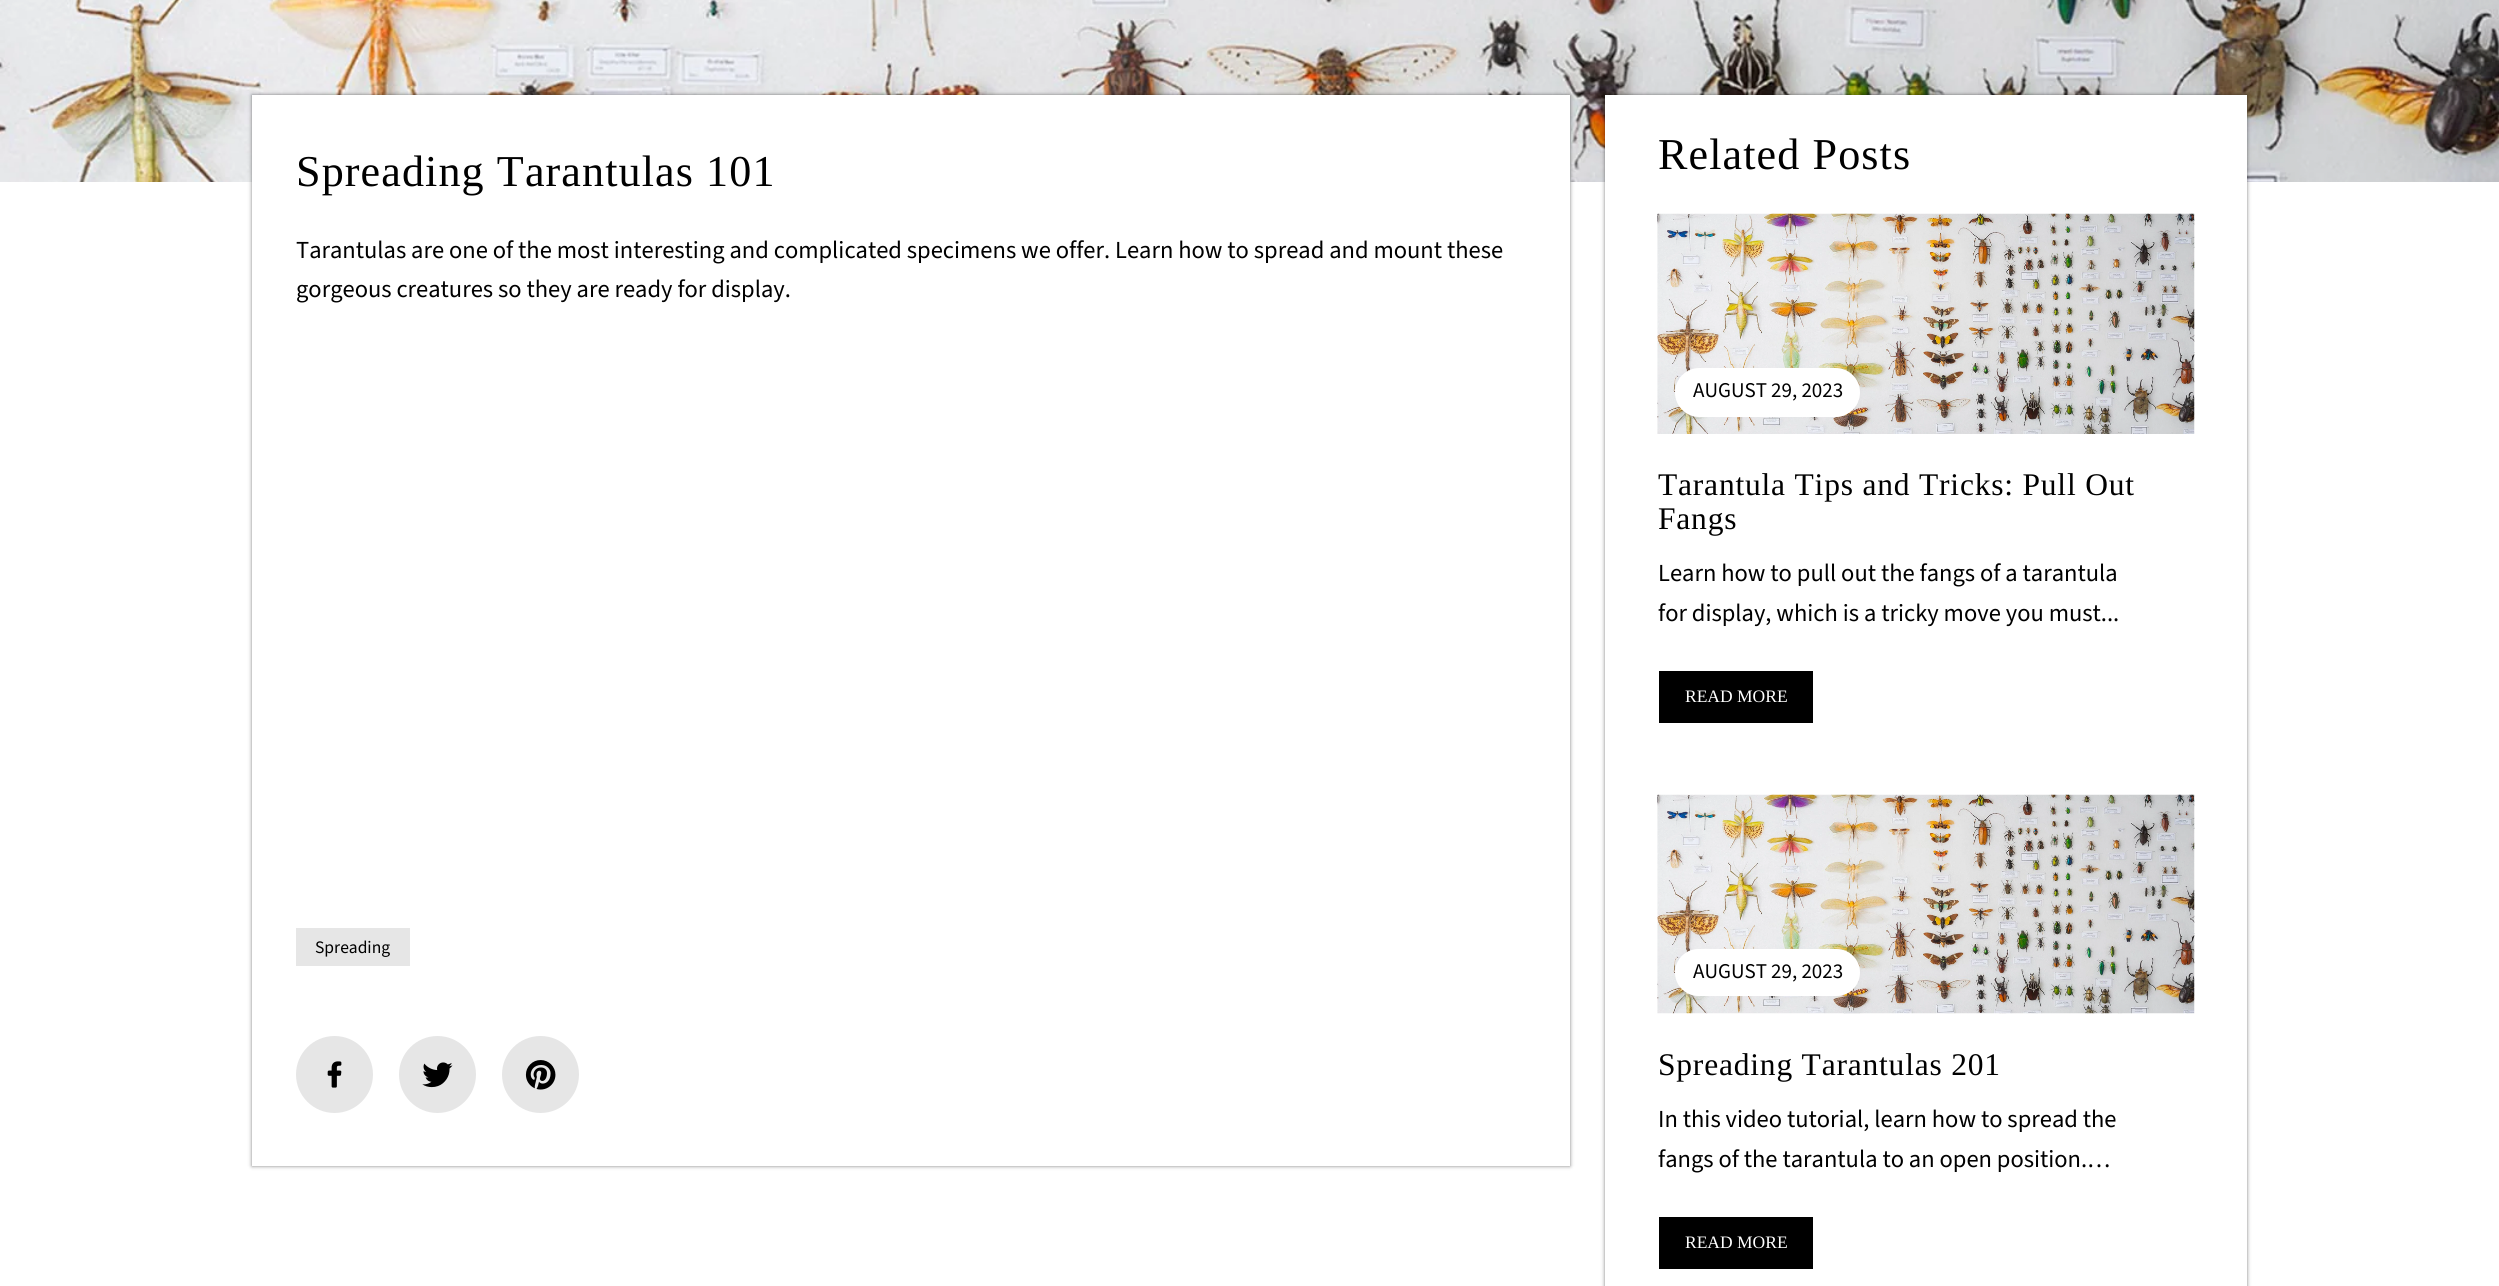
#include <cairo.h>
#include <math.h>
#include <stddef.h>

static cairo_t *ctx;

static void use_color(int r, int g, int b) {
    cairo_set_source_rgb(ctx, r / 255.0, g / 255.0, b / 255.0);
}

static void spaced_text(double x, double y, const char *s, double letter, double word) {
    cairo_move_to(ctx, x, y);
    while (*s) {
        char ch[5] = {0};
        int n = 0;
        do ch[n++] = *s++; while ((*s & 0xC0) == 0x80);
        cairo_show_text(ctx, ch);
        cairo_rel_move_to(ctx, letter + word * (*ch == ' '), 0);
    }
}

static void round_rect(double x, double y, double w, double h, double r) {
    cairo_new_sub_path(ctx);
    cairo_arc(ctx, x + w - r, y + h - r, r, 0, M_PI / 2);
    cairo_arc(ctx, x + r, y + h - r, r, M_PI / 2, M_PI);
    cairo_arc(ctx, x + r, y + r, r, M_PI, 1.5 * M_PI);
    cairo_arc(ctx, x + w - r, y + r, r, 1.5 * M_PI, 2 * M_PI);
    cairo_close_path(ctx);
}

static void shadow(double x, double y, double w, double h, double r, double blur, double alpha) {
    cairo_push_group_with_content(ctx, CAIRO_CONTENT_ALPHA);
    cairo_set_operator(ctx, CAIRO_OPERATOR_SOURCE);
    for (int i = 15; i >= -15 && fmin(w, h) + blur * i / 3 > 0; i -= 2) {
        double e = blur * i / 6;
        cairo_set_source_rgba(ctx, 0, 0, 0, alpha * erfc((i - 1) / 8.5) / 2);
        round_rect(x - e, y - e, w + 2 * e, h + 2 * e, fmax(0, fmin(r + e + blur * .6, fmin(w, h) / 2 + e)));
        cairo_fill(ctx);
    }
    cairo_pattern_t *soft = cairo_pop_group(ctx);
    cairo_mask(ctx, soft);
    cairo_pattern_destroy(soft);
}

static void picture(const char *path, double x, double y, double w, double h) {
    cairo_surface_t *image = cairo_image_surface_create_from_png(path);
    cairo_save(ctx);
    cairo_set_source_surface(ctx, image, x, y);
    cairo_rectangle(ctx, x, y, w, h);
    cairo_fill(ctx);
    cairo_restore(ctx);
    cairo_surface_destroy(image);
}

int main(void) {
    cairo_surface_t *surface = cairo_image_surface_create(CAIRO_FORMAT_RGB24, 2499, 1286);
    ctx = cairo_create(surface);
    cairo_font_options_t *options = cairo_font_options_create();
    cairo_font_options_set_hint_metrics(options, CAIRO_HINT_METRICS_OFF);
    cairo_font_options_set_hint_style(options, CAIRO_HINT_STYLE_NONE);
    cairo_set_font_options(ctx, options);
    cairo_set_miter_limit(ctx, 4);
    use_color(255, 255, 255);
    cairo_paint(ctx);
    picture("img1.png", 0, 0, 2499, 182);
    use_color(0, 0, 0);
    shadow(252, 95, 1318, 1071, 0, 2, 0.5);
    use_color(255, 255, 255);
    cairo_rectangle(ctx, 252, 95, 1318, 1071);
    cairo_fill(ctx);
    cairo_select_font_face(ctx, "Liberation Serif", CAIRO_FONT_SLANT_NORMAL, CAIRO_FONT_WEIGHT_NORMAL);
    cairo_set_font_size(ctx, 44.1);
    use_color(0, 0, 0);
    spaced_text(296, 186, "Spreading Tarantulas 101", 1.1, 0);
    cairo_select_font_face(ctx, "Source Sans Pro", CAIRO_FONT_SLANT_NORMAL, CAIRO_FONT_WEIGHT_NORMAL);
    cairo_set_font_size(ctx, 24.5);
    cairo_move_to(ctx, 296, 258);
    cairo_show_text(ctx, "Tarantulas are one of the most interesting and complicated specimens we offer. Learn how to spread and mount these");
    cairo_move_to(ctx, 296, 297);
    cairo_show_text(ctx, "gorgeous creatures so they are ready for display.");
    use_color(230, 230, 230);
    cairo_rectangle(ctx, 296, 928, 114, 38);
    cairo_fill(ctx);
    cairo_set_font_size(ctx, 17.5);
    use_color(0, 0, 0);
    cairo_move_to(ctx, 315, 953);
    cairo_show_text(ctx, "Spreading");
    use_color(230, 230, 230);
    cairo_new_path(ctx);
    cairo_arc(ctx, 334.5, 1074.5, 38.5, 0, 2 * M_PI);
    cairo_fill(ctx);
    picture("img2.png", 327, 1061, 15, 27);
    cairo_arc(ctx, 437.5, 1074.5, 38.5, 0, 2 * M_PI);
    cairo_fill(ctx);
    picture("img3.png", 422, 1062, 31, 26);
    cairo_arc(ctx, 540.5, 1074.5, 38.5, 0, 2 * M_PI);
    cairo_fill(ctx);
    picture("img4.png", 525, 1060, 31, 30);
    use_color(0, 0, 0);
    shadow(1605, 95, 642, 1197, 0, 2, 0.5);
    use_color(255, 255, 255);
    cairo_rectangle(ctx, 1605, 95, 642, 1191);
    cairo_fill(ctx);
    cairo_select_font_face(ctx, "Liberation Serif", CAIRO_FONT_SLANT_NORMAL, CAIRO_FONT_WEIGHT_NORMAL);
    cairo_set_font_size(ctx, 44.1);
    use_color(0, 0, 0);
    spaced_text(1658, 169, "Related Posts", 1.1, 0);
    picture("img5.png", 1657, 213, 538, 221);
    use_color(255, 255, 255);
    round_rect(1675, 368, 185, 49, 24.5);
    cairo_fill(ctx);
    cairo_select_font_face(ctx, "Source Sans Pro", CAIRO_FONT_SLANT_NORMAL, CAIRO_FONT_WEIGHT_NORMAL);
    cairo_set_font_size(ctx, 21);
    use_color(0, 0, 0);
    cairo_move_to(ctx, 1693, 397);
    cairo_show_text(ctx, "AUGUST 29, 2023");
    cairo_select_font_face(ctx, "Liberation Serif", CAIRO_FONT_SLANT_NORMAL, CAIRO_FONT_WEIGHT_NORMAL);
    cairo_set_font_size(ctx, 31.5);
    spaced_text(1658, 495, "Tarantula Tips and Tricks: Pull Out", 0.8, 0);
    spaced_text(1658, 529, "Fangs", 0.8, 0);
    cairo_select_font_face(ctx, "Source Sans Pro", CAIRO_FONT_SLANT_NORMAL, CAIRO_FONT_WEIGHT_NORMAL);
    cairo_set_font_size(ctx, 24.5);
    cairo_move_to(ctx, 1658, 581);
    cairo_show_text(ctx, "Learn how to pull out the fangs of a tarantula");
    cairo_move_to(ctx, 1658, 621);
    cairo_show_text(ctx, "for display, which is a tricky move you must...");
    cairo_rectangle(ctx, 1659, 671, 154, 52);
    cairo_fill(ctx);
    cairo_select_font_face(ctx, "Liberation Serif", CAIRO_FONT_SLANT_NORMAL, CAIRO_FONT_WEIGHT_NORMAL);
    cairo_set_font_size(ctx, 17.5);
    use_color(255, 255, 255);
    cairo_move_to(ctx, 1685, 702);
    cairo_show_text(ctx, "READ MORE");
    picture("img6.png", 1657, 794, 538, 220);
    round_rect(1675, 949, 185, 47, 23.5);
    cairo_fill(ctx);
    cairo_select_font_face(ctx, "Source Sans Pro", CAIRO_FONT_SLANT_NORMAL, CAIRO_FONT_WEIGHT_NORMAL);
    cairo_set_font_size(ctx, 21);
    use_color(0, 0, 0);
    cairo_move_to(ctx, 1693, 978);
    cairo_show_text(ctx, "AUGUST 29, 2023");
    cairo_select_font_face(ctx, "Liberation Serif", CAIRO_FONT_SLANT_NORMAL, CAIRO_FONT_WEIGHT_NORMAL);
    cairo_set_font_size(ctx, 31.5);
    spaced_text(1658, 1075, "Spreading Tarantulas 201", 0.8, 0);
    cairo_select_font_face(ctx, "Source Sans Pro", CAIRO_FONT_SLANT_NORMAL, CAIRO_FONT_WEIGHT_NORMAL);
    cairo_set_font_size(ctx, 24.5);
    cairo_move_to(ctx, 1658, 1127);
    cairo_show_text(ctx, "In this video tutorial, learn how to spread the");
    cairo_move_to(ctx, 1658, 1167);
    cairo_show_text(ctx, "fangs of the tarantula to an open position.…");
    cairo_rectangle(ctx, 1659, 1217, 154, 52);
    cairo_fill(ctx);
    cairo_select_font_face(ctx, "Liberation Serif", CAIRO_FONT_SLANT_NORMAL, CAIRO_FONT_WEIGHT_NORMAL);
    cairo_set_font_size(ctx, 17.5);
    use_color(255, 255, 255);
    cairo_move_to(ctx, 1685, 1248);
    cairo_show_text(ctx, "READ MORE");
    cairo_surface_write_to_png(surface, "result.png");
    cairo_font_options_destroy(options);
    cairo_destroy(ctx);
    cairo_surface_destroy(surface);
    return 0;
}
